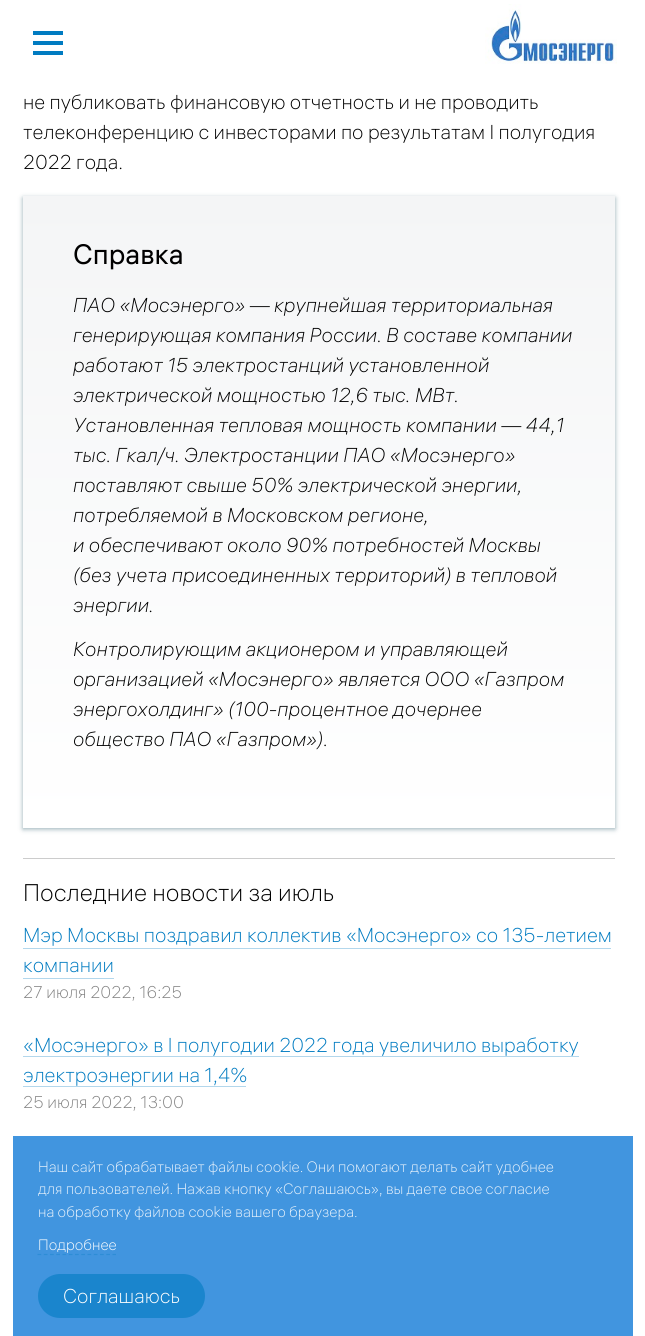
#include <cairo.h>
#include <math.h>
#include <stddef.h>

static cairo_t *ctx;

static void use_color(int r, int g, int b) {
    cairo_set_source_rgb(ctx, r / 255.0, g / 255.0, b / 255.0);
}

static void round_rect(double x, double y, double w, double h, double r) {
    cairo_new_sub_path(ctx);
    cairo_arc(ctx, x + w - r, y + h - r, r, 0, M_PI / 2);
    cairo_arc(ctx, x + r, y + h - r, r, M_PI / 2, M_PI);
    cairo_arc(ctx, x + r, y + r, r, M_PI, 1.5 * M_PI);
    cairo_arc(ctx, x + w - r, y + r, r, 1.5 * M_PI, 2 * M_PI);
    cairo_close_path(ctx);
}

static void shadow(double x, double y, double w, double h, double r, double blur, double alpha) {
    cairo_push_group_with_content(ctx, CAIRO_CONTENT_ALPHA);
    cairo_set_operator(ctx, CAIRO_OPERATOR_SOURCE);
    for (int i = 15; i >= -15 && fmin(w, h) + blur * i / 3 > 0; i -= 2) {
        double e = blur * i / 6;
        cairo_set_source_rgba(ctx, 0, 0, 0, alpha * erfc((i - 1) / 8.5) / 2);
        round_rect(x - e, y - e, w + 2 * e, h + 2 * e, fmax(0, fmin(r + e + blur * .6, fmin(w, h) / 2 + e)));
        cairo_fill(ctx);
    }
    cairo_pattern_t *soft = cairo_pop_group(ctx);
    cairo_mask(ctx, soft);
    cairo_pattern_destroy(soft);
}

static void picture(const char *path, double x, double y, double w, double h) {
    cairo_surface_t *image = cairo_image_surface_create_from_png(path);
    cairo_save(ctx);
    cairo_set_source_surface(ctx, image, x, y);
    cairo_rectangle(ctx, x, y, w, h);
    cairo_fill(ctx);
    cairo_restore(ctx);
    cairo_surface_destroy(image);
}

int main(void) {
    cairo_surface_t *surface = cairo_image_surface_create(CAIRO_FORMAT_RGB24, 645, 1336);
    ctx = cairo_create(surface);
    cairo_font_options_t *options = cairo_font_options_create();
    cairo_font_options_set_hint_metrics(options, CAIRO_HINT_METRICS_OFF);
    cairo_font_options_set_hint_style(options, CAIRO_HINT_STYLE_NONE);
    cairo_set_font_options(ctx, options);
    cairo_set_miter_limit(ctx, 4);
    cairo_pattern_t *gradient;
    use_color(255, 255, 255);
    cairo_paint(ctx);
    use_color(0, 123, 193);
    cairo_rectangle(ctx, 33, 31, 30, 4);
    cairo_fill(ctx);
    cairo_rectangle(ctx, 33, 41, 30, 4);
    cairo_fill(ctx);
    cairo_rectangle(ctx, 33, 51, 30, 4);
    cairo_fill(ctx);
    picture("img1.png", 485, 4, 132, 60);
    cairo_select_font_face(ctx, "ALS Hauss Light", CAIRO_FONT_SLANT_NORMAL, CAIRO_FONT_WEIGHT_NORMAL);
    cairo_set_font_size(ctx, 20);
    use_color(0, 0, 0);
    cairo_move_to(ctx, 23, 109);
    cairo_show_text(ctx, "не публиковать финансовую отчетность и не проводить");
    cairo_move_to(ctx, 23, 139);
    cairo_show_text(ctx, "телеконференцию с инвесторами по результатам I полугодия");
    cairo_move_to(ctx, 23, 169);
    cairo_show_text(ctx, "2022 года.");
    use_color(43, 90, 106);
    shadow(23, 198, 592, 631, 0, 2.5, 0.5);
    gradient = cairo_pattern_create_linear(319, 828, 319, 196);
    cairo_pattern_add_color_stop_rgba(gradient, 0, 1, 1, 1, 1);
    cairo_pattern_add_color_stop_rgba(gradient, 1, 0.957, 0.961, 0.965, 1);
    cairo_set_source(ctx, gradient);
    cairo_pattern_destroy(gradient);
    cairo_rectangle(ctx, 23, 196, 592, 632);
    cairo_fill(ctx);
    cairo_select_font_face(ctx, "ALS Hauss", CAIRO_FONT_SLANT_NORMAL, CAIRO_FONT_WEIGHT_NORMAL);
    cairo_set_font_size(ctx, 28);
    use_color(0, 0, 0);
    cairo_move_to(ctx, 73, 264);
    cairo_show_text(ctx, "Справка");
    cairo_select_font_face(ctx, "ALS Hauss Light", CAIRO_FONT_SLANT_ITALIC, CAIRO_FONT_WEIGHT_NORMAL);
    cairo_set_font_size(ctx, 20);
    cairo_move_to(ctx, 73, 312);
    cairo_show_text(ctx, "ПАО «Мосэнерго» — крупнейшая территориальная");
    cairo_move_to(ctx, 73, 342);
    cairo_show_text(ctx, "генерирующая компания России. В составе компании");
    cairo_move_to(ctx, 73, 372);
    cairo_show_text(ctx, "работают 15 электростанций установленной");
    cairo_move_to(ctx, 73, 402);
    cairo_show_text(ctx, "электрической мощностью 12,6 тыс. МВт.");
    cairo_move_to(ctx, 73, 432);
    cairo_show_text(ctx, "Установленная тепловая мощность компании — 44,1");
    cairo_move_to(ctx, 73, 462);
    cairo_show_text(ctx, "тыс. Гкал/ч. Электростанции ПАО «Мосэнерго»");
    cairo_move_to(ctx, 73, 492);
    cairo_show_text(ctx, "поставляют свыше 50% электрической энергии,");
    cairo_move_to(ctx, 73, 522);
    cairo_show_text(ctx, "потребляемой в Московском регионе,");
    cairo_move_to(ctx, 73, 552);
    cairo_show_text(ctx, "и обеспечивают около 90% потребностей Москвы");
    cairo_move_to(ctx, 73, 582);
    cairo_show_text(ctx, "(без учета присоединенных территорий) в тепловой");
    cairo_move_to(ctx, 73, 612);
    cairo_show_text(ctx, "энергии.");
    cairo_move_to(ctx, 73, 656);
    cairo_show_text(ctx, "Контролирующим акционером и управляющей");
    cairo_move_to(ctx, 73, 686);
    cairo_show_text(ctx, "организацией «Мосэнерго» является ООО «Газпром");
    cairo_move_to(ctx, 73, 716);
    cairo_show_text(ctx, "энергохолдинг» (100-процентное дочернее");
    cairo_move_to(ctx, 73, 746);
    cairo_show_text(ctx, "общество ПАО «Газпром»).");
    use_color(204, 204, 204);
    cairo_rectangle(ctx, 23, 858, 592, 1);
    cairo_fill(ctx);
    cairo_select_font_face(ctx, "ALS Hauss Light", CAIRO_FONT_SLANT_NORMAL, CAIRO_FONT_WEIGHT_NORMAL);
    cairo_set_font_size(ctx, 24);
    use_color(0, 0, 0);
    cairo_move_to(ctx, 23, 901);
    cairo_show_text(ctx, "Последние новости за июль");
    cairo_set_font_size(ctx, 20);
    use_color(0, 123, 193);
    cairo_move_to(ctx, 23, 942);
    cairo_show_text(ctx, "Мэр Москвы поздравил коллектив «Мосэнерго» со 135-летием");
    use_color(179, 215, 236);
    cairo_rectangle(ctx, 23, 948, 588, 1);
    cairo_fill(ctx);
    use_color(0, 123, 193);
    cairo_move_to(ctx, 23, 972);
    cairo_show_text(ctx, "компании");
    use_color(179, 215, 236);
    cairo_rectangle(ctx, 23, 978, 91, 1);
    cairo_fill(ctx);
    cairo_set_font_size(ctx, 17);
    use_color(130, 130, 130);
    cairo_move_to(ctx, 23, 998);
    cairo_show_text(ctx, "27 июля 2022, 16:25");
    cairo_set_font_size(ctx, 20);
    use_color(0, 123, 193);
    cairo_move_to(ctx, 23, 1052);
    cairo_show_text(ctx, "«Мосэнерго» в I полугодии 2022 года увеличило выработку");
    use_color(179, 215, 236);
    cairo_rectangle(ctx, 23, 1056, 556, 1);
    cairo_fill(ctx);
    use_color(0, 123, 193);
    cairo_move_to(ctx, 23, 1082);
    cairo_show_text(ctx, "электроэнергии на 1,4%");
    use_color(179, 215, 236);
    cairo_rectangle(ctx, 23, 1086, 223, 1);
    cairo_fill(ctx);
    cairo_set_font_size(ctx, 17);
    use_color(130, 130, 130);
    cairo_move_to(ctx, 23, 1108);
    cairo_show_text(ctx, "25 июля 2022, 13:00");
    use_color(65, 149, 223);
    cairo_rectangle(ctx, 13, 1136, 620, 200);
    cairo_fill(ctx);
    cairo_set_font_size(ctx, 15);
    use_color(236, 244, 252);
    cairo_move_to(ctx, 38, 1172);
    cairo_show_text(ctx, "Наш сайт обрабатывает файлы cookie. Они помогают делать сайт удобнее");
    cairo_move_to(ctx, 38, 1194);
    cairo_show_text(ctx, "для пользователей. Нажав кнопку «Соглашаюсь», вы даете свое согласие");
    cairo_move_to(ctx, 38, 1217);
    cairo_show_text(ctx, "на обработку файлов cookie вашего браузера.");
    use_color(255, 255, 255);
    cairo_move_to(ctx, 38, 1250);
    cairo_show_text(ctx, "Подробнее");
    cairo_new_path(ctx);
    cairo_move_to(ctx, 37.5, 1254.5);
    cairo_line_to(ctx, 116, 1254.5);
    use_color(46, 141, 214);
    cairo_set_line_width(ctx, 1.2);
    cairo_set_dash(ctx, (double[]){3.75, 2.5}, 2, 0);
    cairo_stroke(ctx);
    use_color(26, 133, 205);
    round_rect(38, 1274, 167, 44, 22);
    cairo_fill(ctx);
    cairo_set_font_size(ctx, 20);
    use_color(255, 255, 255);
    cairo_move_to(ctx, 63, 1303);
    cairo_show_text(ctx, "Соглашаюсь");
    cairo_surface_write_to_png(surface, "result.png");
    cairo_font_options_destroy(options);
    cairo_destroy(ctx);
    cairo_surface_destroy(surface);
    return 0;
}
